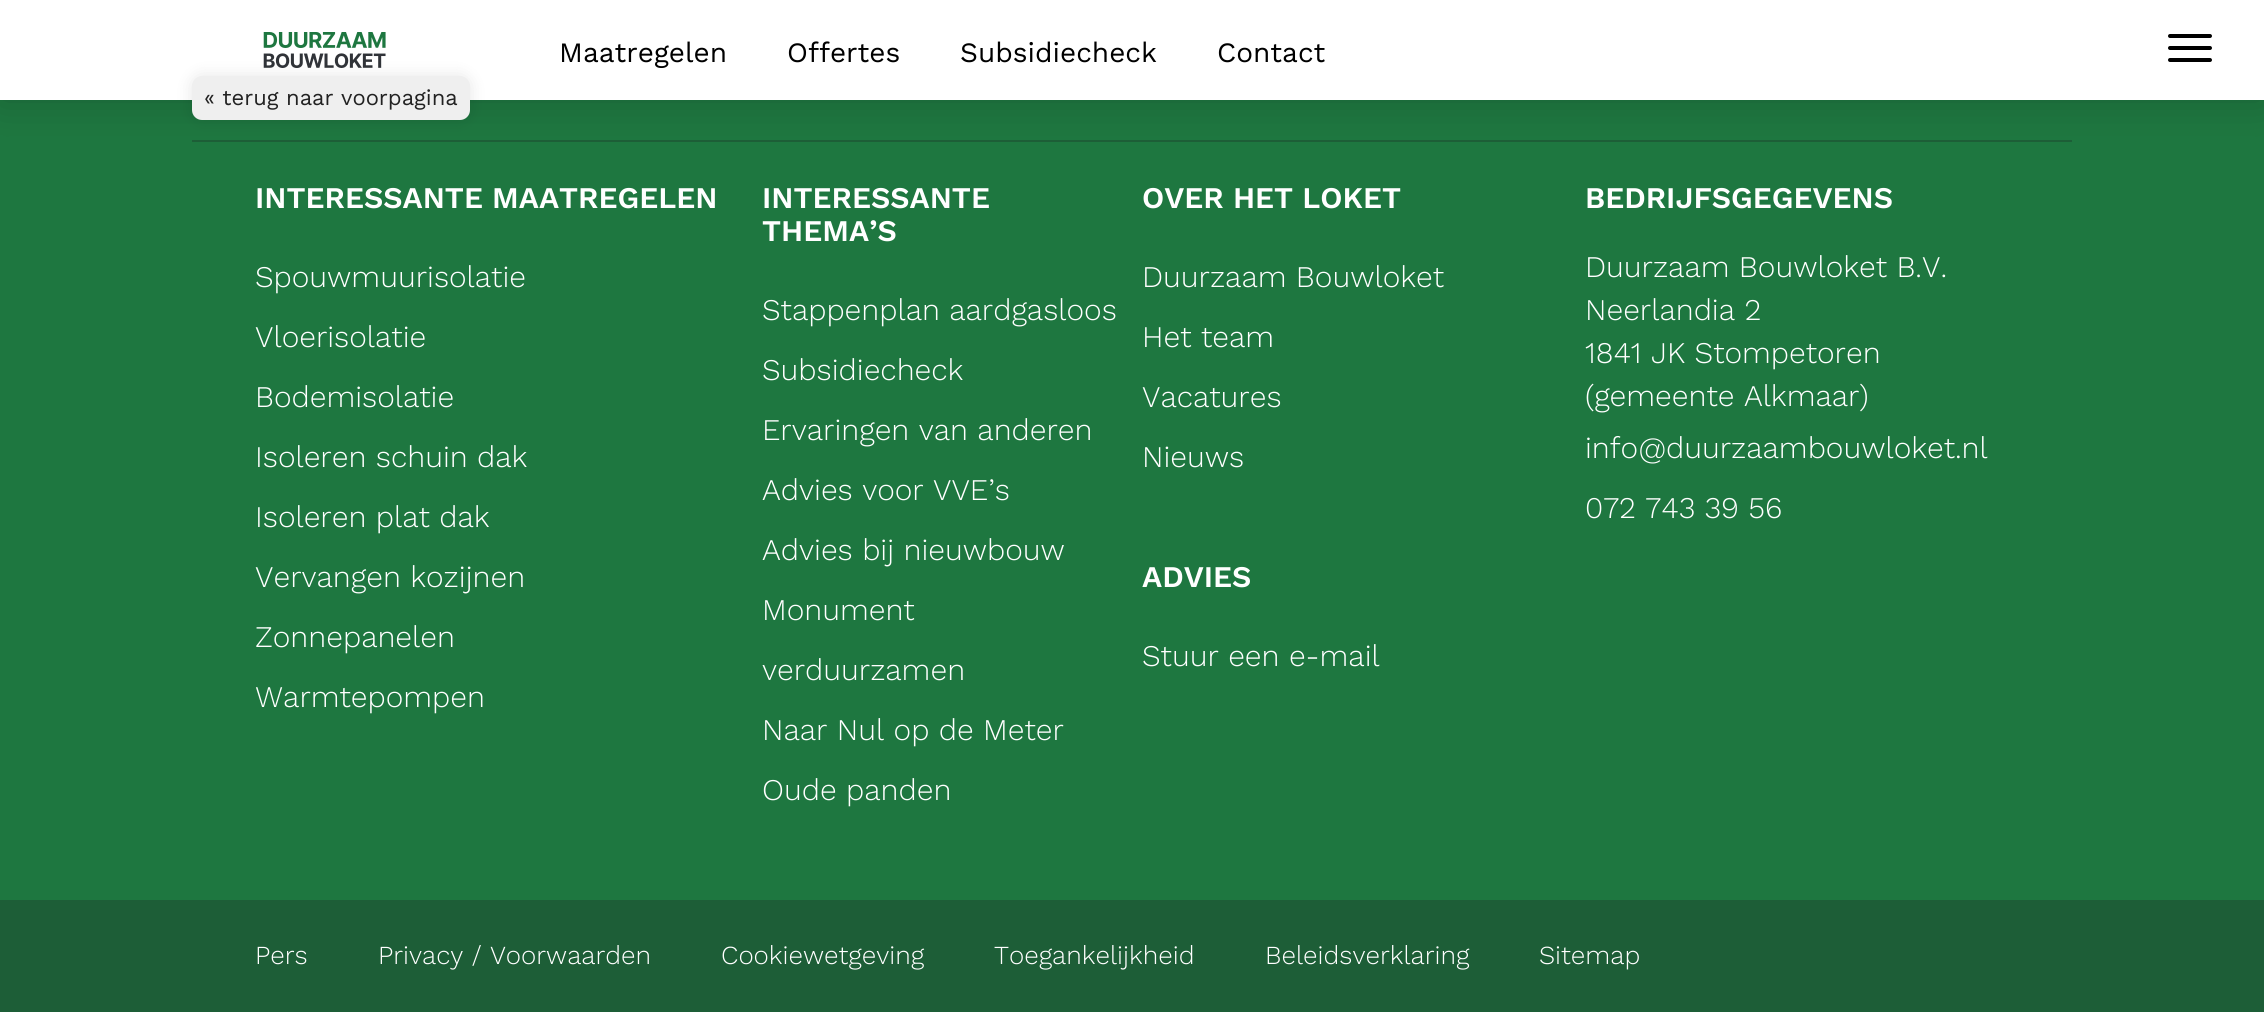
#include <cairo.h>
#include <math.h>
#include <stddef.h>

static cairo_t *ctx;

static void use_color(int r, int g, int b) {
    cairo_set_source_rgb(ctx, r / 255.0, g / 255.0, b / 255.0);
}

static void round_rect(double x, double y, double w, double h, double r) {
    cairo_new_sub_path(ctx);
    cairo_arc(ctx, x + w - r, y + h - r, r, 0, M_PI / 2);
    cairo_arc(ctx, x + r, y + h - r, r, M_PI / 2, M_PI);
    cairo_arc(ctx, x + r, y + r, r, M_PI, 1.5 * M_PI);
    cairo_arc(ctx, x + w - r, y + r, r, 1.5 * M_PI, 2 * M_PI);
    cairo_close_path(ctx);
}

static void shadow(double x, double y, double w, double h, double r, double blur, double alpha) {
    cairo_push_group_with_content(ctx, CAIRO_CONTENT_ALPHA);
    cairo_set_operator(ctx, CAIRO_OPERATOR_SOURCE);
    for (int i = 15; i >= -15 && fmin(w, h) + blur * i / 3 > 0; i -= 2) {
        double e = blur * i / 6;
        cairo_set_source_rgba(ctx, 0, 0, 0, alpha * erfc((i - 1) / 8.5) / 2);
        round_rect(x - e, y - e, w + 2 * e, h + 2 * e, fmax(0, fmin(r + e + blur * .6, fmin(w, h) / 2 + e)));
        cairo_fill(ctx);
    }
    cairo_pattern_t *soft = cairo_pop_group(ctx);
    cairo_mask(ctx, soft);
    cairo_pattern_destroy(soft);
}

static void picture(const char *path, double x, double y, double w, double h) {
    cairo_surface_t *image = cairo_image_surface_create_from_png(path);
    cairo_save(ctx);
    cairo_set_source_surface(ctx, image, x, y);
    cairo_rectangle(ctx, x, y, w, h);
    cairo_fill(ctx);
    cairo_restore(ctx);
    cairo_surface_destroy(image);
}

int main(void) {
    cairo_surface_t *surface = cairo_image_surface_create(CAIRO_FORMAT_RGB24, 2264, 1012);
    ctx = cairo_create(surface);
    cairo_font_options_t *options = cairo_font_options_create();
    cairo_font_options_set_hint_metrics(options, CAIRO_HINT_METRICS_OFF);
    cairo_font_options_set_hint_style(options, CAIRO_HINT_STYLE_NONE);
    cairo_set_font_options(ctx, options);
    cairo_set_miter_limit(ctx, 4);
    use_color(30, 119, 64);
    cairo_paint(ctx);
    use_color(29, 94, 55);
    cairo_rectangle(ctx, 192, 140, 1880, 2);
    cairo_fill(ctx);
    use_color(0, 0, 0);
    shadow(0, 0, 2264, 100, 0, 20, 0.2);
    use_color(255, 255, 255);
    cairo_rectangle(ctx, 0, 0, 2264, 100);
    cairo_fill(ctx);
    cairo_select_font_face(ctx, "Work Sans", CAIRO_FONT_SLANT_NORMAL, CAIRO_FONT_WEIGHT_NORMAL);
    cairo_set_font_size(ctx, 28);
    use_color(0, 0, 0);
    cairo_move_to(ctx, 559, 62);
    cairo_show_text(ctx, "Maatregelen");
    cairo_move_to(ctx, 787, 62);
    cairo_show_text(ctx, "Offertes");
    cairo_move_to(ctx, 960, 62);
    cairo_show_text(ctx, "Subsidiecheck");
    cairo_move_to(ctx, 1217, 62);
    cairo_show_text(ctx, "Contact");
    picture("img1.png", 263, 32, 123, 36);
    use_color(0, 0, 0);
    shadow(192, 76, 278, 44, 10, 8, 0.1);
    use_color(239, 239, 239);
    round_rect(192, 76, 278, 44, 10);
    cairo_fill(ctx);
    cairo_set_font_size(ctx, 22);
    use_color(34, 34, 34);
    cairo_move_to(ctx, 204, 105);
    cairo_show_text(ctx, "« terug naar voorpagina");
    use_color(0, 0, 0);
    round_rect(2168, 34, 44, 4, 2);
    cairo_fill(ctx);
    round_rect(2168, 46, 44, 4, 2);
    cairo_fill(ctx);
    round_rect(2168, 58, 44, 4, 2);
    cairo_fill(ctx);
    cairo_select_font_face(ctx, "Work Sans SemiBold", CAIRO_FONT_SLANT_NORMAL, CAIRO_FONT_WEIGHT_NORMAL);
    cairo_set_font_size(ctx, 30);
    use_color(255, 255, 255);
    cairo_move_to(ctx, 255, 208);
    cairo_show_text(ctx, "INTERESSANTE MAATREGELEN");
    cairo_select_font_face(ctx, "Work Sans Light", CAIRO_FONT_SLANT_NORMAL, CAIRO_FONT_WEIGHT_NORMAL);
    cairo_move_to(ctx, 255, 287);
    cairo_show_text(ctx, "Spouwmuurisolatie");
    cairo_move_to(ctx, 255, 347);
    cairo_show_text(ctx, "Vloerisolatie");
    cairo_move_to(ctx, 255, 407);
    cairo_show_text(ctx, "Bodemisolatie");
    cairo_move_to(ctx, 255, 467);
    cairo_show_text(ctx, "Isoleren schuin dak");
    cairo_move_to(ctx, 255, 527);
    cairo_show_text(ctx, "Isoleren plat dak");
    cairo_move_to(ctx, 255, 587);
    cairo_show_text(ctx, "Vervangen kozijnen");
    cairo_move_to(ctx, 255, 647);
    cairo_show_text(ctx, "Zonnepanelen");
    cairo_move_to(ctx, 255, 707);
    cairo_show_text(ctx, "Warmtepompen");
    cairo_select_font_face(ctx, "Work Sans SemiBold", CAIRO_FONT_SLANT_NORMAL, CAIRO_FONT_WEIGHT_NORMAL);
    cairo_move_to(ctx, 762, 208);
    cairo_show_text(ctx, "INTERESSANTE");
    cairo_move_to(ctx, 762, 241);
    cairo_show_text(ctx, "THEMA’S");
    cairo_select_font_face(ctx, "Work Sans Light", CAIRO_FONT_SLANT_NORMAL, CAIRO_FONT_WEIGHT_NORMAL);
    cairo_move_to(ctx, 762, 320);
    cairo_show_text(ctx, "Stappenplan aardgasloos");
    cairo_move_to(ctx, 762, 380);
    cairo_show_text(ctx, "Subsidiecheck");
    cairo_move_to(ctx, 762, 440);
    cairo_show_text(ctx, "Ervaringen van anderen");
    cairo_move_to(ctx, 762, 500);
    cairo_show_text(ctx, "Advies voor VVE’s");
    cairo_move_to(ctx, 762, 560);
    cairo_show_text(ctx, "Advies bij nieuwbouw");
    cairo_move_to(ctx, 762, 620);
    cairo_show_text(ctx, "Monument");
    cairo_move_to(ctx, 762, 680);
    cairo_show_text(ctx, "verduurzamen");
    cairo_move_to(ctx, 762, 740);
    cairo_show_text(ctx, "Naar Nul op de Meter");
    cairo_move_to(ctx, 762, 800);
    cairo_show_text(ctx, "Oude panden");
    cairo_select_font_face(ctx, "Work Sans SemiBold", CAIRO_FONT_SLANT_NORMAL, CAIRO_FONT_WEIGHT_NORMAL);
    cairo_move_to(ctx, 1142, 208);
    cairo_show_text(ctx, "OVER HET LOKET");
    cairo_select_font_face(ctx, "Work Sans Light", CAIRO_FONT_SLANT_NORMAL, CAIRO_FONT_WEIGHT_NORMAL);
    cairo_move_to(ctx, 1142, 287);
    cairo_show_text(ctx, "Duurzaam Bouwloket");
    cairo_move_to(ctx, 1142, 347);
    cairo_show_text(ctx, "Het team");
    cairo_move_to(ctx, 1142, 407);
    cairo_show_text(ctx, "Vacatures");
    cairo_move_to(ctx, 1142, 467);
    cairo_show_text(ctx, "Nieuws");
    cairo_select_font_face(ctx, "Work Sans SemiBold", CAIRO_FONT_SLANT_NORMAL, CAIRO_FONT_WEIGHT_NORMAL);
    cairo_move_to(ctx, 1142, 587);
    cairo_show_text(ctx, "ADVIES");
    cairo_select_font_face(ctx, "Work Sans Light", CAIRO_FONT_SLANT_NORMAL, CAIRO_FONT_WEIGHT_NORMAL);
    cairo_move_to(ctx, 1142, 666);
    cairo_show_text(ctx, "Stuur een e-mail");
    cairo_select_font_face(ctx, "Work Sans SemiBold", CAIRO_FONT_SLANT_NORMAL, CAIRO_FONT_WEIGHT_NORMAL);
    cairo_move_to(ctx, 1585, 208);
    cairo_show_text(ctx, "BEDRIJFSGEGEVENS");
    cairo_select_font_face(ctx, "Work Sans Light", CAIRO_FONT_SLANT_NORMAL, CAIRO_FONT_WEIGHT_NORMAL);
    cairo_move_to(ctx, 1585, 277);
    cairo_show_text(ctx, "Duurzaam Bouwloket B.V.");
    cairo_move_to(ctx, 1585, 320);
    cairo_show_text(ctx, "Neerlandia 2");
    cairo_move_to(ctx, 1585, 363);
    cairo_show_text(ctx, "1841 JK Stompetoren");
    cairo_move_to(ctx, 1585, 406);
    cairo_show_text(ctx, "(gemeente Alkmaar)");
    cairo_move_to(ctx, 1585, 458);
    cairo_show_text(ctx, "info@duurzaambouwloket.nl");
    cairo_move_to(ctx, 1585, 518);
    cairo_show_text(ctx, "072 743 39 56");
    use_color(29, 94, 55);
    cairo_rectangle(ctx, 0, 900, 2264, 112);
    cairo_fill(ctx);
    cairo_set_font_size(ctx, 26);
    use_color(255, 255, 255);
    cairo_move_to(ctx, 255, 964);
    cairo_show_text(ctx, "Pers");
    cairo_move_to(ctx, 378, 964);
    cairo_show_text(ctx, "Privacy / Voorwaarden");
    cairo_move_to(ctx, 721, 964);
    cairo_show_text(ctx, "Cookiewetgeving");
    cairo_move_to(ctx, 994, 964);
    cairo_show_text(ctx, "Toegankelijkheid");
    cairo_move_to(ctx, 1265, 964);
    cairo_show_text(ctx, "Beleidsverklaring");
    cairo_move_to(ctx, 1539, 964);
    cairo_show_text(ctx, "Sitemap");
    cairo_surface_write_to_png(surface, "result.png");
    cairo_font_options_destroy(options);
    cairo_destroy(ctx);
    cairo_surface_destroy(surface);
    return 0;
}
